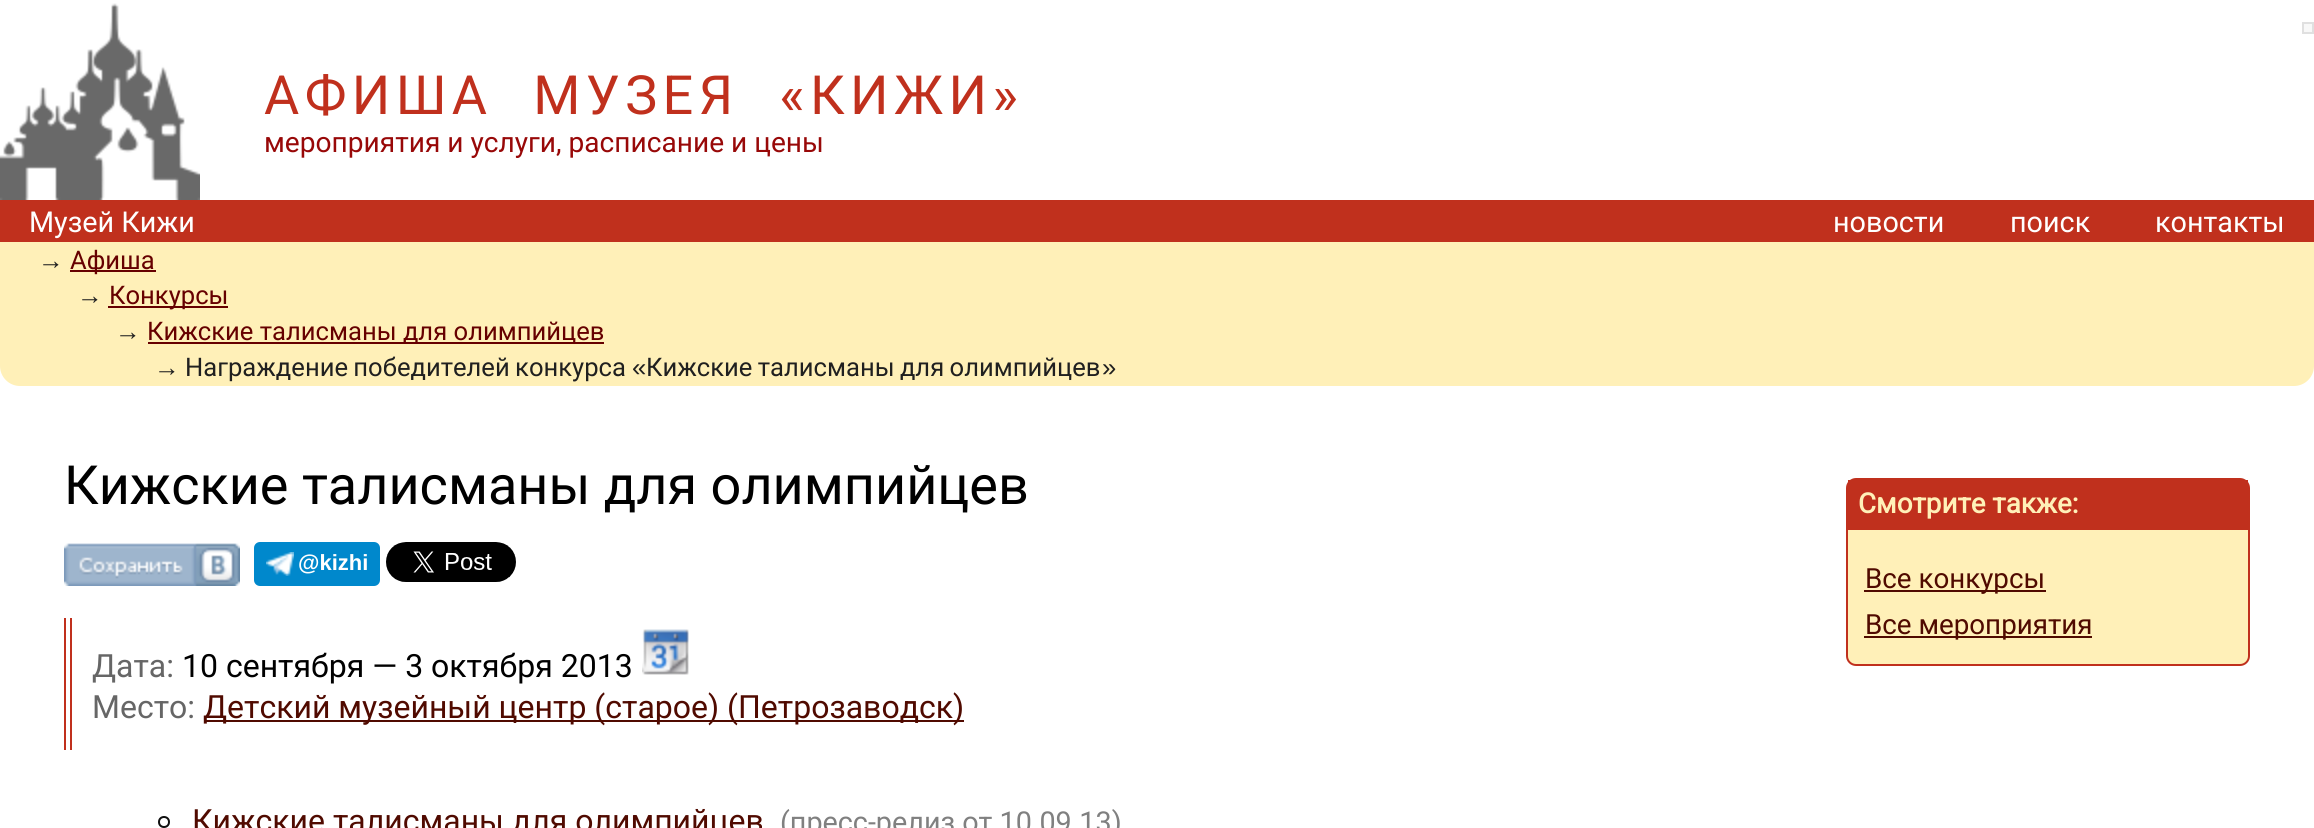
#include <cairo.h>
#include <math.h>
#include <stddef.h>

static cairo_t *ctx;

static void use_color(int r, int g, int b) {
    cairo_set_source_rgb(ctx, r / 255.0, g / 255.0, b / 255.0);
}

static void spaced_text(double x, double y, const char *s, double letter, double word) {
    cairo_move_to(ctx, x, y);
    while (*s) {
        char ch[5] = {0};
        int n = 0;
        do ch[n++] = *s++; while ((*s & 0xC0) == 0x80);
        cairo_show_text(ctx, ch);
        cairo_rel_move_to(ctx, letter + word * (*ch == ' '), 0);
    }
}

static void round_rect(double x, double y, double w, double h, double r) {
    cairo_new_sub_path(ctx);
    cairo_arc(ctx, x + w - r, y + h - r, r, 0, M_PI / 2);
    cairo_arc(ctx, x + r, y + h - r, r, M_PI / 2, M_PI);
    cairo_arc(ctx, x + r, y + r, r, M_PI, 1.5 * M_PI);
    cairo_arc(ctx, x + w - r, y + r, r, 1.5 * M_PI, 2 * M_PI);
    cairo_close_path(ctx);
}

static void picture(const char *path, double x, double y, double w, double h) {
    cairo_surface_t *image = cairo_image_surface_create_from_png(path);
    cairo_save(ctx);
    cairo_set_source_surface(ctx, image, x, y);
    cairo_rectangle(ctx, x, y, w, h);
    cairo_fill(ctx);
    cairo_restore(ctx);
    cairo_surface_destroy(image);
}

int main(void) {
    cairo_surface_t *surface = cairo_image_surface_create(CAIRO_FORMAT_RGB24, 2314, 828);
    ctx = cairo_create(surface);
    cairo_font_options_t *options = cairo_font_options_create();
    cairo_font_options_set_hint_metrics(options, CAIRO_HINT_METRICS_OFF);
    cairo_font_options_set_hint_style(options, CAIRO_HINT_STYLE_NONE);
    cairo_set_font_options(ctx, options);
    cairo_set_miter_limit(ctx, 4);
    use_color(255, 255, 255);
    cairo_paint(ctx);
    picture("img1.png", 0, 3, 200, 197);
    use_color(248, 248, 248);
    cairo_rectangle(ctx, 2303, 23, 10, 10);
    cairo_fill_preserve(ctx);
    use_color(224, 224, 224);
    cairo_stroke(ctx);
    cairo_select_font_face(ctx, "Roboto", CAIRO_FONT_SLANT_NORMAL, CAIRO_FONT_WEIGHT_NORMAL);
    cairo_set_font_size(ctx, 54);
    use_color(192, 48, 29);
    spaced_text(264, 114, "АФИША МУЗЕЯ «КИЖИ»", 5.4, 22);
    cairo_set_font_size(ctx, 28.1);
    use_color(152, 8, 8);
    cairo_move_to(ctx, 264, 152);
    cairo_show_text(ctx, "мероприятия и услуги, расписание и цены");
    use_color(192, 48, 29);
    cairo_rectangle(ctx, 0, 200, 2314, 42);
    cairo_fill(ctx);
    cairo_set_font_size(ctx, 28.75);
    use_color(255, 255, 255);
    cairo_move_to(ctx, 29, 232);
    cairo_show_text(ctx, "Музей Кижи");
    cairo_move_to(ctx, 1833, 232);
    cairo_show_text(ctx, "новости");
    cairo_move_to(ctx, 2010, 232);
    cairo_show_text(ctx, "поиск");
    cairo_move_to(ctx, 2155, 232);
    cairo_show_text(ctx, "контакты");
    use_color(255, 240, 184);
    cairo_new_path(ctx);
    cairo_move_to(ctx, 0, 242);
    cairo_line_to(ctx, 2314, 242);
    cairo_line_to(ctx, 2314, 366);
    cairo_curve_to(ctx, 2314, 377, 2305, 386, 2294, 386);
    cairo_line_to(ctx, 20, 386);
    cairo_curve_to(ctx, 9, 386, 0, 377, 0, 366);
    cairo_close_path(ctx);
    cairo_fill(ctx);
    cairo_select_font_face(ctx, "Liberation Sans", CAIRO_FONT_SLANT_NORMAL, CAIRO_FONT_WEIGHT_NORMAL);
    cairo_set_font_size(ctx, 25.6);
    use_color(32, 32, 32);
    cairo_move_to(ctx, 38, 269);
    cairo_show_text(ctx, "→");
    use_color(102, 0, 0);
    cairo_rectangle(ctx, 70, 270, 86, 2);
    cairo_fill(ctx);
    cairo_select_font_face(ctx, "Roboto", CAIRO_FONT_SLANT_NORMAL, CAIRO_FONT_WEIGHT_NORMAL);
    cairo_move_to(ctx, 70, 269);
    cairo_show_text(ctx, "Афиша");
    cairo_select_font_face(ctx, "Liberation Sans", CAIRO_FONT_SLANT_NORMAL, CAIRO_FONT_WEIGHT_NORMAL);
    use_color(32, 32, 32);
    cairo_move_to(ctx, 77, 304);
    cairo_show_text(ctx, "→");
    use_color(102, 0, 0);
    cairo_rectangle(ctx, 108, 306, 120, 2);
    cairo_fill(ctx);
    cairo_select_font_face(ctx, "Roboto", CAIRO_FONT_SLANT_NORMAL, CAIRO_FONT_WEIGHT_NORMAL);
    cairo_move_to(ctx, 109, 304);
    cairo_show_text(ctx, "Конкурсы");
    cairo_select_font_face(ctx, "Liberation Sans", CAIRO_FONT_SLANT_NORMAL, CAIRO_FONT_WEIGHT_NORMAL);
    use_color(32, 32, 32);
    cairo_move_to(ctx, 115, 340);
    cairo_show_text(ctx, "→");
    use_color(102, 0, 0);
    cairo_rectangle(ctx, 148, 342, 456, 2);
    cairo_fill(ctx);
    cairo_select_font_face(ctx, "Roboto", CAIRO_FONT_SLANT_NORMAL, CAIRO_FONT_WEIGHT_NORMAL);
    cairo_move_to(ctx, 147, 340);
    cairo_show_text(ctx, "Кижские талисманы для олимпийцев");
    cairo_select_font_face(ctx, "Liberation Sans", CAIRO_FONT_SLANT_NORMAL, CAIRO_FONT_WEIGHT_NORMAL);
    use_color(32, 32, 32);
    cairo_move_to(ctx, 154, 376);
    cairo_show_text(ctx, "→");
    cairo_select_font_face(ctx, "Roboto", CAIRO_FONT_SLANT_NORMAL, CAIRO_FONT_WEIGHT_NORMAL);
    spaced_text(185, 376, "Награждение победителей конкурса", 0, -1);
    cairo_select_font_face(ctx, "Liberation Sans", CAIRO_FONT_SLANT_NORMAL, CAIRO_FONT_WEIGHT_NORMAL);
    cairo_move_to(ctx, 632, 376);
    cairo_show_text(ctx, "«");
    cairo_select_font_face(ctx, "Roboto", CAIRO_FONT_SLANT_NORMAL, CAIRO_FONT_WEIGHT_NORMAL);
    spaced_text(646, 376, "Кижские талисманы для олимпийцев", 0, -1);
    cairo_select_font_face(ctx, "Liberation Sans", CAIRO_FONT_SLANT_NORMAL, CAIRO_FONT_WEIGHT_NORMAL);
    cairo_move_to(ctx, 1102, 376);
    cairo_show_text(ctx, "»");
    cairo_select_font_face(ctx, "Roboto", CAIRO_FONT_SLANT_NORMAL, CAIRO_FONT_WEIGHT_NORMAL);
    cairo_set_font_size(ctx, 54);
    use_color(0, 0, 0);
    cairo_move_to(ctx, 64, 504);
    cairo_show_text(ctx, "Кижские талисманы для олимпийцев");
    picture("img2.png", 64, 543, 176, 43);
    use_color(0, 136, 204);
    round_rect(254, 542, 126, 44, 6);
    cairo_fill(ctx);
    picture("img3.png", 266, 552, 28, 24);
    cairo_select_font_face(ctx, "Liberation Sans", CAIRO_FONT_SLANT_NORMAL, CAIRO_FONT_WEIGHT_BOLD);
    cairo_set_font_size(ctx, 22);
    use_color(255, 255, 255);
    cairo_move_to(ctx, 298, 570);
    cairo_show_text(ctx, "@kizhi");
    picture("img4.png", 386, 542, 130, 40);
    use_color(255, 240, 184);
    round_rect(1847, 479, 402, 186, 9);
    cairo_fill_preserve(ctx);
    use_color(192, 48, 29);
    cairo_stroke(ctx);
    cairo_rectangle(ctx, 1848, 480, 400, 50);
    cairo_fill(ctx);
    cairo_select_font_face(ctx, "Roboto", CAIRO_FONT_SLANT_NORMAL, CAIRO_FONT_WEIGHT_BOLD);
    cairo_set_font_size(ctx, 27.75);
    use_color(255, 240, 184);
    cairo_move_to(ctx, 1858, 513);
    cairo_show_text(ctx, "Смотрите также:");
    use_color(80, 10, 0);
    cairo_rectangle(ctx, 1864, 590, 182, 2);
    cairo_fill(ctx);
    cairo_select_font_face(ctx, "Roboto", CAIRO_FONT_SLANT_NORMAL, CAIRO_FONT_WEIGHT_NORMAL);
    cairo_move_to(ctx, 1865, 588);
    cairo_show_text(ctx, "Все конкурсы");
    cairo_rectangle(ctx, 1864, 636, 228, 2);
    cairo_fill(ctx);
    cairo_move_to(ctx, 1865, 634);
    cairo_show_text(ctx, "Все мероприятия");
    use_color(192, 48, 29);
    cairo_rectangle(ctx, 64, 618, 2, 132);
    cairo_fill(ctx);
    cairo_rectangle(ctx, 70, 618, 2, 132);
    cairo_fill(ctx);
    cairo_set_font_size(ctx, 32);
    use_color(102, 102, 102);
    cairo_move_to(ctx, 92, 677);
    cairo_show_text(ctx, "Дата:");
    use_color(0, 0, 0);
    cairo_move_to(ctx, 182, 677);
    cairo_show_text(ctx, "10 сентября — 3 октября 2013");
    picture("img5.png", 642, 629, 47, 46);
    use_color(102, 102, 102);
    cairo_move_to(ctx, 92, 718);
    cairo_show_text(ctx, "Место:");
    use_color(80, 10, 0);
    cairo_rectangle(ctx, 204, 720, 760, 2);
    cairo_fill(ctx);
    cairo_move_to(ctx, 203, 718);
    cairo_show_text(ctx, "Детский музейный центр (старое) (Петрозаводск)");
    cairo_new_path(ctx);
    cairo_arc(ctx, 164, 822, 5, 0, 2 * M_PI);
    use_color(16, 16, 16);
    cairo_stroke(ctx);
    use_color(80, 10, 0);
    cairo_move_to(ctx, 192, 832);
    cairo_show_text(ctx, "Кижские талисманы для олимпийцев");
    cairo_set_font_size(ctx, 28.75);
    use_color(128, 128, 128);
    cairo_move_to(ctx, 780, 832);
    cairo_show_text(ctx, "(пресс-релиз от 10.09.13)");
    cairo_surface_write_to_png(surface, "result.png");
    cairo_font_options_destroy(options);
    cairo_destroy(ctx);
    cairo_surface_destroy(surface);
    return 0;
}
